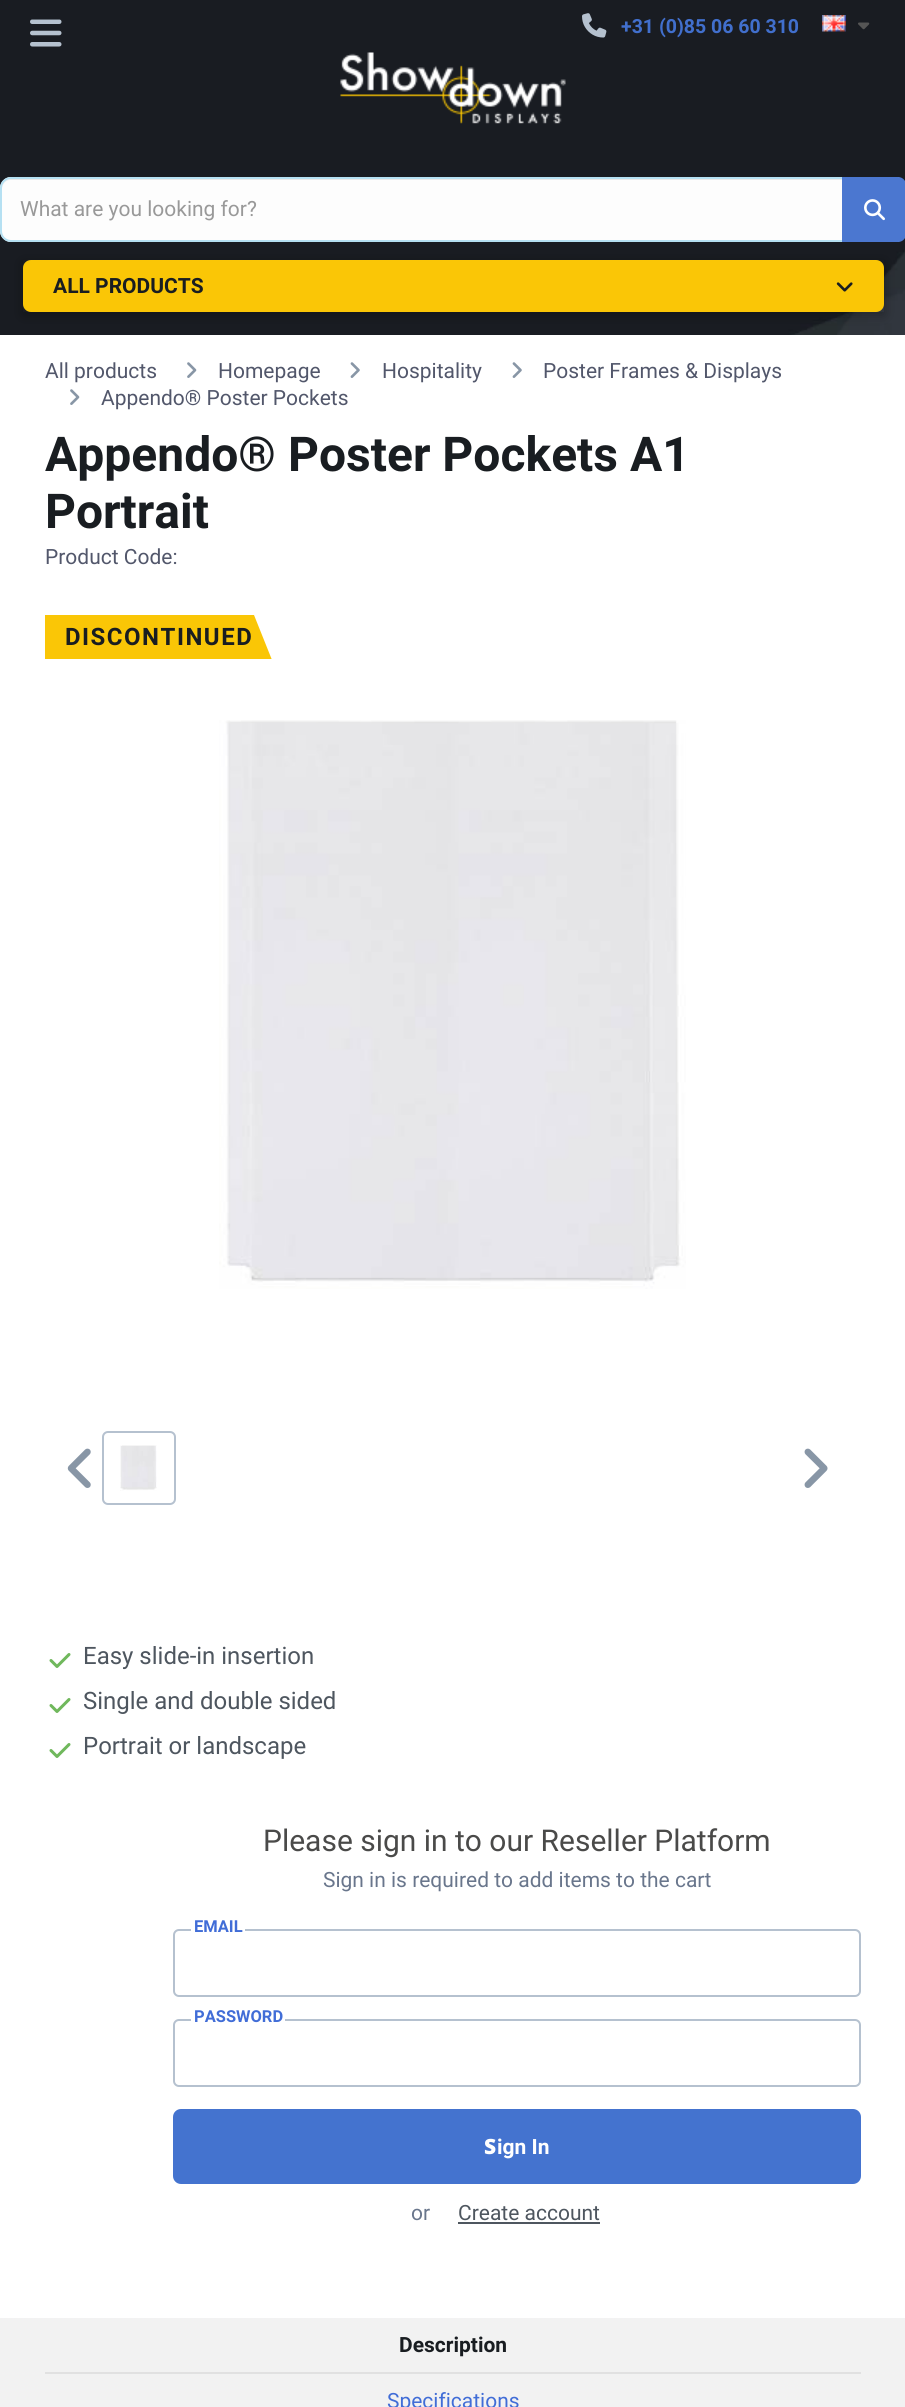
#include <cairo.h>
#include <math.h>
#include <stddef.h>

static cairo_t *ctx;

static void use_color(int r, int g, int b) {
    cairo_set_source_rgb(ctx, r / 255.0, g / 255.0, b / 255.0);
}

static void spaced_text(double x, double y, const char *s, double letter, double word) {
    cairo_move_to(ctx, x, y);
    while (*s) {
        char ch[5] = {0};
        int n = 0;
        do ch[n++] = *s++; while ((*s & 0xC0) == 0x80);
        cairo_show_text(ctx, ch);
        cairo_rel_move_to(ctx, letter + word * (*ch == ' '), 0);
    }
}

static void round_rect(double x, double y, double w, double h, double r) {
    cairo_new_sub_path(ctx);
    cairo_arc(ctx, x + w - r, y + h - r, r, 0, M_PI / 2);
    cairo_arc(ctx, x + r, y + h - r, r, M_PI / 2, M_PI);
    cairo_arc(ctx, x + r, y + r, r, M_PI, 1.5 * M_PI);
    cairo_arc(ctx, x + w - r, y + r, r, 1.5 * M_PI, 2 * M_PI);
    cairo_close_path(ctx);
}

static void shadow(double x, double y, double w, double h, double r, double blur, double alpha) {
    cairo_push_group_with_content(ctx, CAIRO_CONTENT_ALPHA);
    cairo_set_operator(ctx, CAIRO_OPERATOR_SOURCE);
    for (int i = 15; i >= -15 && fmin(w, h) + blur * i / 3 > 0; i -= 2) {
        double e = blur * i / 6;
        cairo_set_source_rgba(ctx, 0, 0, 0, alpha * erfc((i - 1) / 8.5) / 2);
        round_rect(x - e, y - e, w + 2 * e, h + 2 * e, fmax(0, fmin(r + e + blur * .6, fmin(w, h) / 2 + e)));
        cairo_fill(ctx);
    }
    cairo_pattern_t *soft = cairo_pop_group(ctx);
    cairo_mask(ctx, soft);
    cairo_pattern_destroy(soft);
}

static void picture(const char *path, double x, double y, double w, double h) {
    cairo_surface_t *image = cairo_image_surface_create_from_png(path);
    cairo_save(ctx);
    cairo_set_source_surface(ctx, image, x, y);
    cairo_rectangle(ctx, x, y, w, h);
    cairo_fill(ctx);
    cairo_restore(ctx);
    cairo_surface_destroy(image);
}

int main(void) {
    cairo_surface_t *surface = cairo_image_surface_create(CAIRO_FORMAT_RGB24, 905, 2407);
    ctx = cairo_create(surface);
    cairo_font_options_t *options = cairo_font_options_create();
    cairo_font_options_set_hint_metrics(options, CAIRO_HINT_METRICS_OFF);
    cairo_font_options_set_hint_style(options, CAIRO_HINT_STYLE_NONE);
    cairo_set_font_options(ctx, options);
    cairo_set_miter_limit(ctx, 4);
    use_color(255, 255, 255);
    cairo_paint(ctx);
    picture("img1.png", 0, 0, 905, 335);
    picture("img2.png", 30, 19, 32, 28);
    picture("img3.png", 582, 13, 25, 25);
    cairo_select_font_face(ctx, "Roboto", CAIRO_FONT_SLANT_NORMAL, CAIRO_FONT_WEIGHT_BOLD);
    cairo_set_font_size(ctx, 19.5);
    use_color(65, 111, 205);
    cairo_move_to(ctx, 621, 33);
    cairo_show_text(ctx, "+31 (0)85 06 60 310");
    picture("img4.png", 822, 15, 24, 17);
    picture("img5.png", 858, 22, 12, 8);
    picture("img6.png", 340, 52, 226, 72);
    use_color(253, 253, 253);
    round_rect(0, 177, 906, 65, 11);
    cairo_fill(ctx);
    use_color(234, 234, 234);
    cairo_new_path(ctx);
    cairo_move_to(ctx, 10, 180);
    cairo_line_to(ctx, 896, 180);
    cairo_curve_to(ctx, 900, 180, 904, 184, 904, 189);
    cairo_line_to(ctx, 904, 232);
    cairo_curve_to(ctx, 904, 234, 904, 235, 903, 237);
    cairo_curve_to(ctx, 904, 235, 905, 233, 905, 231);
    cairo_line_to(ctx, 905, 188);
    cairo_curve_to(ctx, 905, 183, 901, 179, 896, 179);
    cairo_line_to(ctx, 11, 179);
    cairo_curve_to(ctx, 6, 179, 2, 183, 2, 188);
    cairo_line_to(ctx, 2, 189);
    cairo_curve_to(ctx, 2, 184, 6, 180, 10, 180);
    cairo_close_path(ctx);
    cairo_fill(ctx);
    round_rect(1, 178, 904, 63, 10);
    use_color(181, 224, 242);
    cairo_stroke(ctx);
    cairo_select_font_face(ctx, "Roboto", CAIRO_FONT_SLANT_NORMAL, CAIRO_FONT_WEIGHT_NORMAL);
    cairo_set_font_size(ctx, 21);
    use_color(153, 153, 153);
    cairo_move_to(ctx, 20, 216);
    cairo_show_text(ctx, "What are you looking for?");
    use_color(75, 119, 208);
    cairo_new_path(ctx);
    cairo_move_to(ctx, 842, 177);
    cairo_line_to(ctx, 898, 177);
    cairo_curve_to(ctx, 902.5, 177, 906, 180.5, 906, 185);
    cairo_line_to(ctx, 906, 234);
    cairo_curve_to(ctx, 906, 238.5, 902.5, 242, 898, 242);
    cairo_line_to(ctx, 842, 242);
    cairo_close_path(ctx);
    cairo_fill(ctx);
    picture("img7.png", 864, 199, 21, 22);
    cairo_save(ctx);
    cairo_set_fill_rule(ctx, CAIRO_FILL_RULE_EVEN_ODD);
    cairo_new_path(ctx);
    cairo_move_to(ctx, 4, 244);
    cairo_line_to(ctx, 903, 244);
    cairo_line_to(ctx, 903, 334);
    cairo_line_to(ctx, 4, 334);
    cairo_close_path(ctx);
    cairo_move_to(ctx, 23, 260);
    cairo_line_to(ctx, 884, 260);
    cairo_line_to(ctx, 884, 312);
    cairo_line_to(ctx, 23, 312);
    cairo_close_path(ctx);
    cairo_clip(ctx);
    use_color(0, 0, 0);
    shadow(23, 263, 861, 52, 0, 6, 0.3);
    cairo_restore(ctx);
    use_color(250, 198, 6);
    round_rect(23, 260, 861, 52, 8);
    cairo_fill(ctx);
    cairo_select_font_face(ctx, "Roboto", CAIRO_FONT_SLANT_NORMAL, CAIRO_FONT_WEIGHT_BOLD);
    use_color(25, 29, 33);
    cairo_move_to(ctx, 53, 293);
    cairo_show_text(ctx, "ALL PRODUCTS");
    picture("img8.png", 836, 282, 17, 10);
    cairo_select_font_face(ctx, "Roboto", CAIRO_FONT_SLANT_NORMAL, CAIRO_FONT_WEIGHT_NORMAL);
    use_color(82, 87, 107);
    cairo_move_to(ctx, 45, 378);
    cairo_show_text(ctx, "All products");
    picture("img9.png", 187, 362, 10, 16);
    cairo_move_to(ctx, 218, 378);
    cairo_show_text(ctx, "Homepage");
    picture("img10.png", 350, 362, 10, 16);
    cairo_move_to(ctx, 382, 378);
    cairo_show_text(ctx, "Hospitality");
    picture("img10.png", 512, 362, 10, 16);
    cairo_move_to(ctx, 543, 378);
    cairo_show_text(ctx, "Poster Frames & Displays");
    picture("img9.png", 70, 389, 10, 16);
    cairo_move_to(ctx, 101, 405);
    cairo_show_text(ctx, "Appendo® Poster Pockets");
    cairo_select_font_face(ctx, "Roboto", CAIRO_FONT_SLANT_NORMAL, CAIRO_FONT_WEIGHT_BOLD);
    cairo_set_font_size(ctx, 48);
    use_color(25, 29, 33);
    cairo_move_to(ctx, 45, 471);
    cairo_show_text(ctx, "Appendo® Poster Pockets A1");
    cairo_move_to(ctx, 45, 528);
    cairo_show_text(ctx, "Portrait");
    cairo_select_font_face(ctx, "Roboto", CAIRO_FONT_SLANT_NORMAL, CAIRO_FONT_WEIGHT_NORMAL);
    cairo_set_font_size(ctx, 21);
    use_color(82, 87, 107);
    cairo_move_to(ctx, 45, 564);
    cairo_show_text(ctx, "Product Code:");
    cairo_save(ctx);
    cairo_rectangle(ctx, 45, 615, 228, 44);
    cairo_clip(ctx);
    use_color(250, 198, 6);
    cairo_new_path(ctx);
    cairo_move_to(ctx, 27, 615);
    cairo_line_to(ctx, 152, 615);
    cairo_line_to(ctx, 170, 660);
    cairo_line_to(ctx, 45, 660);
    cairo_close_path(ctx);
    cairo_fill(ctx);
    cairo_new_path(ctx);
    cairo_move_to(ctx, 140, 615);
    cairo_line_to(ctx, 254, 615);
    cairo_line_to(ctx, 272, 660);
    cairo_line_to(ctx, 159, 660);
    cairo_close_path(ctx);
    cairo_fill(ctx);
    cairo_restore(ctx);
    cairo_select_font_face(ctx, "Roboto", CAIRO_FONT_SLANT_NORMAL, CAIRO_FONT_WEIGHT_BOLD);
    cairo_set_font_size(ctx, 24);
    use_color(25, 29, 33);
    spaced_text(65, 645, "DISCONTINUED", 1.5, 0);
    picture("img11.png", 219, 720, 467, 569);
    picture("img12.png", 67, 1448, 24, 40);
    round_rect(103, 1432, 72, 72, 5);
    use_color(181, 193, 207);
    cairo_stroke(ctx);
    picture("img13.png", 120, 1445, 37, 46);
    picture("img14.png", 804, 1448, 24, 40);
    picture("img15.png", 49, 1653, 22, 15);
    cairo_select_font_face(ctx, "Roboto", CAIRO_FONT_SLANT_NORMAL, CAIRO_FONT_WEIGHT_NORMAL);
    use_color(78, 86, 95);
    cairo_move_to(ctx, 83, 1664);
    cairo_show_text(ctx, "Easy slide-in insertion");
    picture("img15.png", 49, 1698, 22, 15);
    cairo_move_to(ctx, 83, 1709);
    cairo_show_text(ctx, "Single and double sided");
    picture("img15.png", 49, 1743, 22, 15);
    cairo_move_to(ctx, 83, 1754);
    cairo_show_text(ctx, "Portrait or landscape");
    cairo_set_font_size(ctx, 30);
    use_color(74, 74, 73);
    cairo_move_to(ctx, 263, 1851);
    cairo_show_text(ctx, "Please sign in to our Reseller Platform");
    cairo_set_font_size(ctx, 21);
    use_color(105, 118, 140);
    cairo_move_to(ctx, 323, 1887);
    cairo_show_text(ctx, "Sign in is required to add items to the cart");
    round_rect(174, 1930, 686, 66, 5);
    use_color(181, 193, 207);
    cairo_stroke(ctx);
    use_color(255, 255, 255);
    cairo_rectangle(ctx, 191, 1929, 54, 2);
    cairo_fill(ctx);
    cairo_select_font_face(ctx, "Roboto", CAIRO_FONT_SLANT_NORMAL, CAIRO_FONT_WEIGHT_BOLD);
    cairo_set_font_size(ctx, 16.5);
    use_color(65, 109, 215);
    cairo_move_to(ctx, 194, 1932);
    cairo_show_text(ctx, "EMAIL");
    round_rect(174, 2020, 686, 66, 5);
    use_color(181, 193, 207);
    cairo_stroke(ctx);
    use_color(255, 255, 255);
    cairo_rectangle(ctx, 191, 2019, 94, 2);
    cairo_fill(ctx);
    use_color(65, 109, 215);
    cairo_move_to(ctx, 194, 2022);
    cairo_show_text(ctx, "PASSWORD");
    use_color(68, 115, 207);
    round_rect(173, 2109, 688, 75, 8);
    cairo_fill(ctx);
    cairo_select_font_face(ctx, "Noto Sans Black", CAIRO_FONT_SLANT_NORMAL, CAIRO_FONT_WEIGHT_NORMAL);
    cairo_set_font_size(ctx, 21);
    use_color(255, 255, 255);
    cairo_move_to(ctx, 484, 2154);
    cairo_show_text(ctx, "S");
    cairo_select_font_face(ctx, "Roboto", CAIRO_FONT_SLANT_NORMAL, CAIRO_FONT_WEIGHT_BOLD);
    cairo_move_to(ctx, 497, 2154);
    cairo_show_text(ctx, "ign In");
    cairo_select_font_face(ctx, "Roboto", CAIRO_FONT_SLANT_NORMAL, CAIRO_FONT_WEIGHT_NORMAL);
    use_color(105, 118, 140);
    cairo_move_to(ctx, 411, 2220);
    cairo_show_text(ctx, "or");
    use_color(78, 86, 95);
    cairo_move_to(ctx, 458, 2220);
    cairo_show_text(ctx, "Create account");
    cairo_rectangle(ctx, 458, 2222, 142, 2);
    cairo_fill(ctx);
    use_color(242, 242, 242);
    cairo_rectangle(ctx, 0, 2318, 905, 89);
    cairo_fill(ctx);
    use_color(225, 225, 225);
    cairo_rectangle(ctx, 45, 2372, 816, 2);
    cairo_fill(ctx);
    cairo_select_font_face(ctx, "Roboto", CAIRO_FONT_SLANT_NORMAL, CAIRO_FONT_WEIGHT_BOLD);
    use_color(25, 29, 33);
    cairo_move_to(ctx, 399, 2352);
    cairo_show_text(ctx, "Description");
    cairo_select_font_face(ctx, "Roboto", CAIRO_FONT_SLANT_NORMAL, CAIRO_FONT_WEIGHT_NORMAL);
    use_color(65, 109, 215);
    cairo_move_to(ctx, 387, 2408);
    cairo_show_text(ctx, "Specifications");
    cairo_surface_write_to_png(surface, "result.png");
    cairo_font_options_destroy(options);
    cairo_destroy(ctx);
    cairo_surface_destroy(surface);
    return 0;
}
